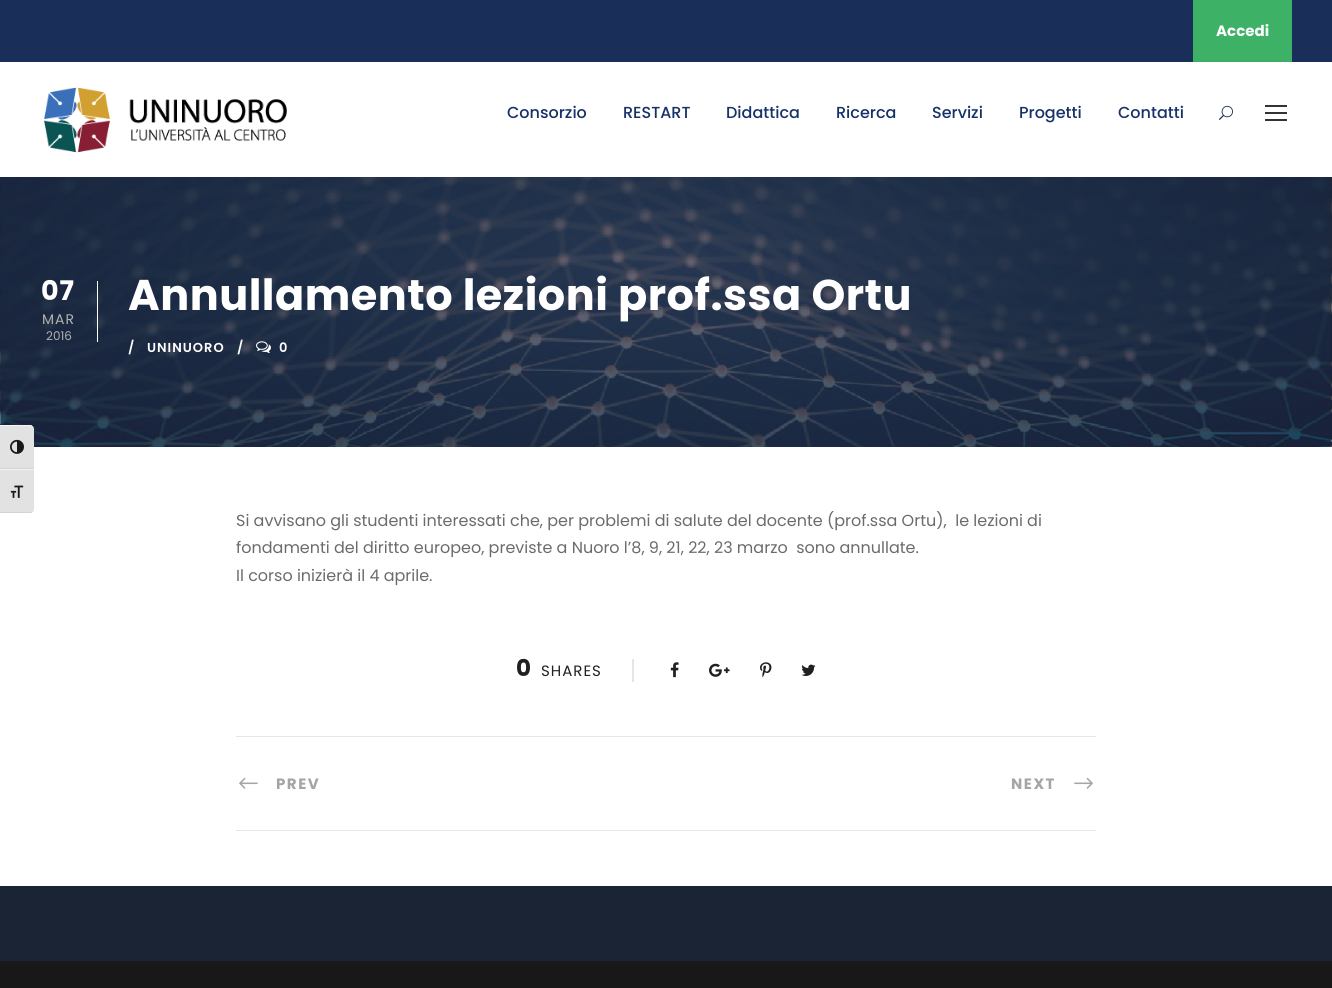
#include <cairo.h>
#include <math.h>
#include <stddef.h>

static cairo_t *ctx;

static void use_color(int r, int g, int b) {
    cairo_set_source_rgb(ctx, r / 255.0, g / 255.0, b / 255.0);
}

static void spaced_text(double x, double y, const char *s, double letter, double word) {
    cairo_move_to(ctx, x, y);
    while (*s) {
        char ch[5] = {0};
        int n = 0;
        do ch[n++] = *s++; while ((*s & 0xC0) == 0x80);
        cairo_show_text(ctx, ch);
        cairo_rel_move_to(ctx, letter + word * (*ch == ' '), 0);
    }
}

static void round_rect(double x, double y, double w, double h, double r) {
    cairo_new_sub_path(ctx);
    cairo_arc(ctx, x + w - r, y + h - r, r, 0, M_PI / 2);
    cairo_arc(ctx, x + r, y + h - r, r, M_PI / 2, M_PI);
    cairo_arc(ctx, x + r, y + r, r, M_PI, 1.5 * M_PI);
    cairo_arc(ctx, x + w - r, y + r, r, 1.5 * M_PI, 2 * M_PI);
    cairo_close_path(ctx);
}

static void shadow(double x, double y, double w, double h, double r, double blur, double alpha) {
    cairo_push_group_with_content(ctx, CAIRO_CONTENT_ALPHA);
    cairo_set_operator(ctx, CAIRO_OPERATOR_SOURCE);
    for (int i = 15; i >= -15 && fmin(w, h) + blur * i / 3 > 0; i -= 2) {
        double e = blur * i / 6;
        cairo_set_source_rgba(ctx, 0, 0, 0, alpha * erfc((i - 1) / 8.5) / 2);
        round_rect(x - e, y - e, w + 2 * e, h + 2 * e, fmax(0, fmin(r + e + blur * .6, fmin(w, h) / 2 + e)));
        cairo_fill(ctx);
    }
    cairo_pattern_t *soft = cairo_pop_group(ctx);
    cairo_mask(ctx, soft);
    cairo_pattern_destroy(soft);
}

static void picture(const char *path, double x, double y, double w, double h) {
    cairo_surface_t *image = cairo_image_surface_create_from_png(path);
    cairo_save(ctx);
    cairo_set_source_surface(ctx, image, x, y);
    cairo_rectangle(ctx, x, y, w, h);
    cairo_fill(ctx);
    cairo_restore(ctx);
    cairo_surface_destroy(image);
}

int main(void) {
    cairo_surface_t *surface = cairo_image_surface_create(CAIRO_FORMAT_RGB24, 1332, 988);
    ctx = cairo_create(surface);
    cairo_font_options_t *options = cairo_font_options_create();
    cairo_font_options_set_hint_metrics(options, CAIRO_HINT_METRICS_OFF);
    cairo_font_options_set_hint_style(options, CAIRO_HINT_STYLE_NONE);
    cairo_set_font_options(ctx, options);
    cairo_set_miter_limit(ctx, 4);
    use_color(255, 255, 255);
    cairo_paint(ctx);
    use_color(25, 47, 89);
    cairo_rectangle(ctx, 0, 0, 1332, 62);
    cairo_fill(ctx);
    use_color(61, 177, 102);
    cairo_rectangle(ctx, 1193, 0, 99, 62);
    cairo_fill(ctx);
    use_color(0, 0, 0);
    shadow(0, 63, 1332, 115, 0, 2, 0.1);
    picture("img5.png", 0, 177, 1332, 270);
    use_color(226, 226, 226);
    cairo_new_path(ctx);
    cairo_move_to(ctx, 0, 425);
    cairo_line_to(ctx, 30, 425);
    cairo_curve_to(ctx, 32, 425, 34, 427, 34, 429);
    cairo_line_to(ctx, 34, 469);
    cairo_line_to(ctx, 0, 469);
    cairo_close_path(ctx);
    cairo_fill(ctx);
    use_color(245, 245, 245);
    cairo_new_path(ctx);
    cairo_move_to(ctx, 0, 425);
    cairo_line_to(ctx, 0, 426);
    cairo_line_to(ctx, 30, 426);
    cairo_curve_to(ctx, 32, 426, 34, 427, 34, 429);
    cairo_curve_to(ctx, 34, 427, 32, 425, 30, 425);
    cairo_close_path(ctx);
    cairo_fill(ctx);
    use_color(210, 210, 210);
    cairo_rectangle(ctx, 0, 468, 34, 1);
    cairo_fill(ctx);
    picture("img1.png", 10, 439, 14, 15);
    use_color(226, 226, 226);
    cairo_new_path(ctx);
    cairo_move_to(ctx, 0, 469);
    cairo_line_to(ctx, 34, 469);
    cairo_line_to(ctx, 34, 509);
    cairo_curve_to(ctx, 34, 511, 32, 513, 30, 513);
    cairo_line_to(ctx, 0, 513);
    cairo_close_path(ctx);
    cairo_fill(ctx);
    use_color(245, 245, 245);
    cairo_rectangle(ctx, 0, 469, 34, 1);
    cairo_fill(ctx);
    use_color(210, 210, 210);
    cairo_new_path(ctx);
    cairo_move_to(ctx, 0, 512);
    cairo_line_to(ctx, 0, 513);
    cairo_line_to(ctx, 30, 513);
    cairo_curve_to(ctx, 32, 513, 34, 511, 34, 509);
    cairo_curve_to(ctx, 34, 511, 32, 512, 30, 512);
    cairo_close_path(ctx);
    cairo_fill(ctx);
    picture("img2.png", 10, 485, 14, 13);
    cairo_select_font_face(ctx, "Poppins", CAIRO_FONT_SLANT_NORMAL, CAIRO_FONT_WEIGHT_BOLD);
    cairo_set_font_size(ctx, 15);
    use_color(255, 255, 255);
    cairo_move_to(ctx, 1216, 36);
    cairo_show_text(ctx, "Accedi");
    cairo_rectangle(ctx, 0, 62, 1332, 115);
    cairo_fill(ctx);
    picture("img3.png", 44, 87, 243, 66);
    cairo_select_font_face(ctx, "Poppins Medium", CAIRO_FONT_SLANT_NORMAL, CAIRO_FONT_WEIGHT_NORMAL);
    cairo_set_font_size(ctx, 16);
    use_color(22, 50, 105);
    cairo_move_to(ctx, 507, 118);
    cairo_show_text(ctx, "Consorzio");
    cairo_move_to(ctx, 623, 118);
    cairo_show_text(ctx, "RESTART");
    cairo_move_to(ctx, 726, 118);
    cairo_show_text(ctx, "Didattica");
    cairo_move_to(ctx, 836, 118);
    cairo_show_text(ctx, "Ricerca");
    cairo_move_to(ctx, 932, 118);
    cairo_show_text(ctx, "Servizi");
    cairo_move_to(ctx, 1019, 118);
    cairo_show_text(ctx, "Progetti");
    cairo_move_to(ctx, 1118, 118);
    cairo_show_text(ctx, "Contatti");
    picture("img4.png", 1219, 105, 14, 15);
    use_color(51, 51, 51);
    cairo_rectangle(ctx, 1265, 105, 22, 2);
    cairo_fill(ctx);
    cairo_rectangle(ctx, 1265, 112, 22, 2);
    cairo_fill(ctx);
    cairo_rectangle(ctx, 1265, 119, 22, 2);
    cairo_fill(ctx);
    use_color(255, 255, 255);
    cairo_rectangle(ctx, 97, 281, 1, 61);
    cairo_fill(ctx);
    cairo_select_font_face(ctx, "Poppins", CAIRO_FONT_SLANT_NORMAL, CAIRO_FONT_WEIGHT_BOLD);
    cairo_set_font_size(ctx, 27);
    spaced_text(41, 300, "07", 1, 0);
    cairo_select_font_face(ctx, "Poppins", CAIRO_FONT_SLANT_NORMAL, CAIRO_FONT_WEIGHT_NORMAL);
    cairo_set_font_size(ctx, 14);
    use_color(177, 177, 177);
    spaced_text(42, 324, "MAR", 1, 0);
    cairo_set_font_size(ctx, 12);
    cairo_move_to(ctx, 46, 340);
    cairo_show_text(ctx, "2016");
    cairo_select_font_face(ctx, "Poppins", CAIRO_FONT_SLANT_NORMAL, CAIRO_FONT_WEIGHT_BOLD);
    cairo_set_font_size(ctx, 43);
    use_color(255, 255, 255);
    spaced_text(128, 310, "Annullamento lezioni prof.ssa Ortu", 0.5, 0);
    cairo_select_font_face(ctx, "Poppins SemiBold", CAIRO_FONT_SLANT_NORMAL, CAIRO_FONT_WEIGHT_NORMAL);
    cairo_set_font_size(ctx, 13);
    spaced_text(128, 352, "/", 1, 0);
    spaced_text(147, 352, "UNINUORO", 1, 0);
    spaced_text(237, 352, "/", 1, 0);
    picture("img6.png", 256, 341, 15, 12);
    spaced_text(279, 352, "0", 1, 0);
    cairo_select_font_face(ctx, "Poppins", CAIRO_FONT_SLANT_NORMAL, CAIRO_FONT_WEIGHT_NORMAL);
    cairo_set_font_size(ctx, 16);
    use_color(107, 107, 107);
    cairo_move_to(ctx, 236, 526);
    cairo_show_text(ctx, "Si avvisano gli studenti interessati che, per problemi di salute del docente (prof.ssa Ortu),  le lezioni di");
    cairo_move_to(ctx, 236, 553);
    cairo_show_text(ctx, "fondamenti del diritto europeo, previste a Nuoro l’8, 9, 21, 22, 23 marzo  sono annullate.");
    cairo_move_to(ctx, 236, 581);
    cairo_show_text(ctx, "Il corso inizierà il 4 aprile.");
    cairo_select_font_face(ctx, "Poppins", CAIRO_FONT_SLANT_NORMAL, CAIRO_FONT_WEIGHT_BOLD);
    cairo_set_font_size(ctx, 23);
    use_color(32, 32, 32);
    cairo_move_to(ctx, 516, 676);
    cairo_show_text(ctx, "0");
    cairo_select_font_face(ctx, "Poppins", CAIRO_FONT_SLANT_NORMAL, CAIRO_FONT_WEIGHT_NORMAL);
    cairo_set_font_size(ctx, 15);
    spaced_text(541, 676, "SHARES", 1, 0);
    use_color(229, 229, 229);
    cairo_rectangle(ctx, 632, 659, 2, 23);
    cairo_fill(ctx);
    picture("img7.png", 670, 662, 9, 16);
    picture("img8.png", 709, 663, 21, 14);
    picture("img9.png", 760, 662, 12, 16);
    picture("img10.png", 801, 664, 15, 12);
    use_color(230, 230, 230);
    cairo_rectangle(ctx, 236, 736, 860, 1);
    cairo_fill(ctx);
    cairo_rectangle(ctx, 236, 830, 860, 1);
    cairo_fill(ctx);
    picture("img11.png", 239, 777, 19, 12);
    cairo_select_font_face(ctx, "Poppins", CAIRO_FONT_SLANT_NORMAL, CAIRO_FONT_WEIGHT_BOLD);
    use_color(165, 165, 165);
    spaced_text(276, 789, "PREV", 1.5, 0);
    spaced_text(1011, 789, "NEXT", 1.5, 0);
    picture("img12.png", 1074, 777, 19, 12);
    use_color(27, 36, 52);
    cairo_rectangle(ctx, 0, 886, 1332, 75);
    cairo_fill(ctx);
    use_color(24, 24, 24);
    cairo_rectangle(ctx, 0, 961, 1332, 27);
    cairo_fill(ctx);
    cairo_surface_write_to_png(surface, "result.png");
    cairo_font_options_destroy(options);
    cairo_destroy(ctx);
    cairo_surface_destroy(surface);
    return 0;
}
